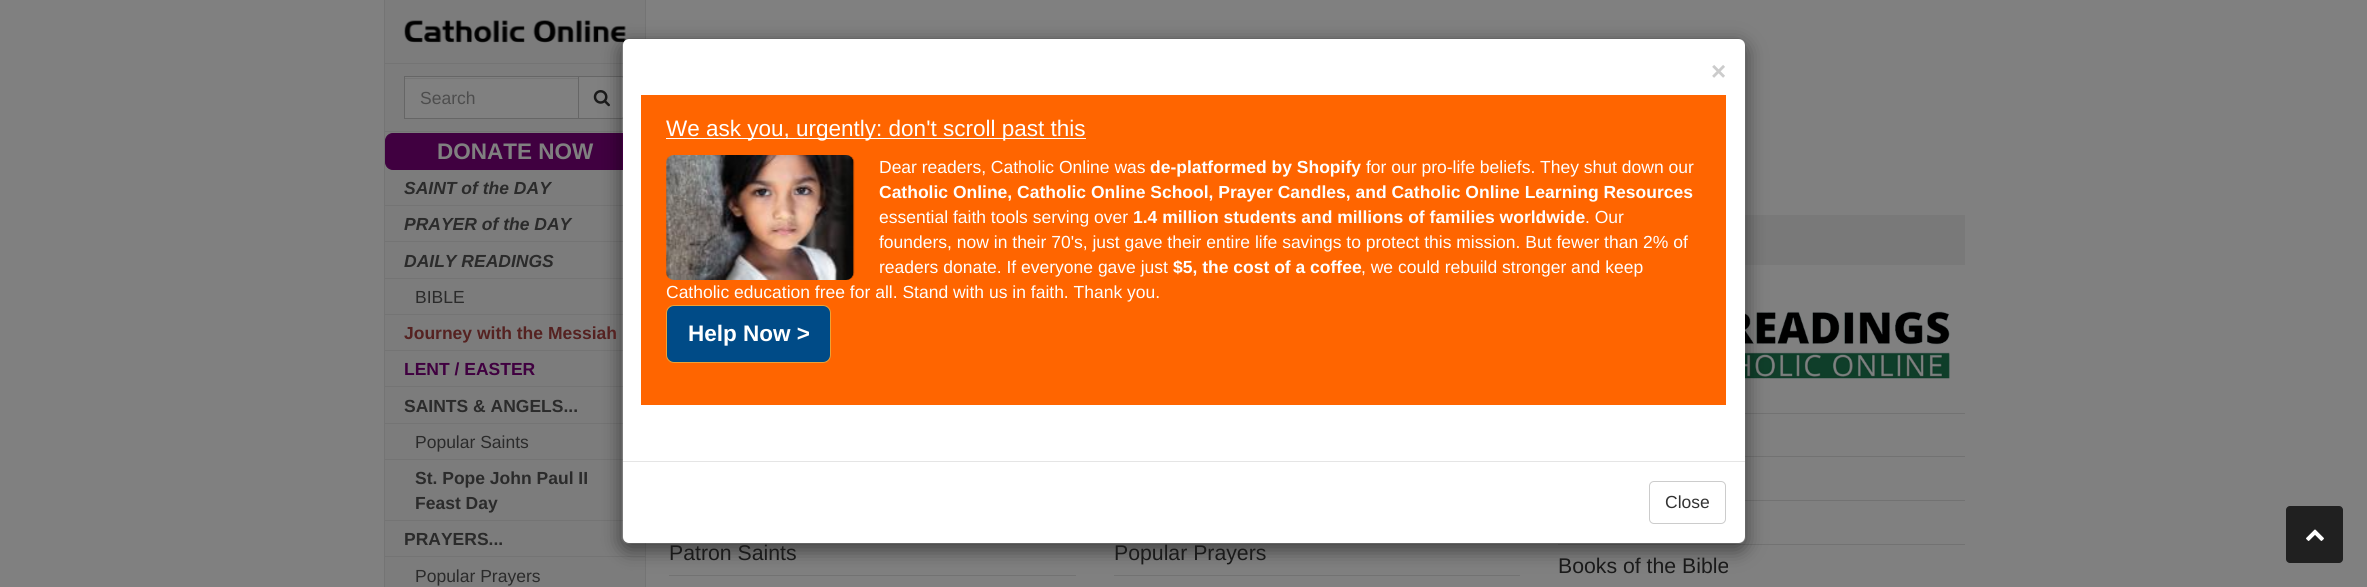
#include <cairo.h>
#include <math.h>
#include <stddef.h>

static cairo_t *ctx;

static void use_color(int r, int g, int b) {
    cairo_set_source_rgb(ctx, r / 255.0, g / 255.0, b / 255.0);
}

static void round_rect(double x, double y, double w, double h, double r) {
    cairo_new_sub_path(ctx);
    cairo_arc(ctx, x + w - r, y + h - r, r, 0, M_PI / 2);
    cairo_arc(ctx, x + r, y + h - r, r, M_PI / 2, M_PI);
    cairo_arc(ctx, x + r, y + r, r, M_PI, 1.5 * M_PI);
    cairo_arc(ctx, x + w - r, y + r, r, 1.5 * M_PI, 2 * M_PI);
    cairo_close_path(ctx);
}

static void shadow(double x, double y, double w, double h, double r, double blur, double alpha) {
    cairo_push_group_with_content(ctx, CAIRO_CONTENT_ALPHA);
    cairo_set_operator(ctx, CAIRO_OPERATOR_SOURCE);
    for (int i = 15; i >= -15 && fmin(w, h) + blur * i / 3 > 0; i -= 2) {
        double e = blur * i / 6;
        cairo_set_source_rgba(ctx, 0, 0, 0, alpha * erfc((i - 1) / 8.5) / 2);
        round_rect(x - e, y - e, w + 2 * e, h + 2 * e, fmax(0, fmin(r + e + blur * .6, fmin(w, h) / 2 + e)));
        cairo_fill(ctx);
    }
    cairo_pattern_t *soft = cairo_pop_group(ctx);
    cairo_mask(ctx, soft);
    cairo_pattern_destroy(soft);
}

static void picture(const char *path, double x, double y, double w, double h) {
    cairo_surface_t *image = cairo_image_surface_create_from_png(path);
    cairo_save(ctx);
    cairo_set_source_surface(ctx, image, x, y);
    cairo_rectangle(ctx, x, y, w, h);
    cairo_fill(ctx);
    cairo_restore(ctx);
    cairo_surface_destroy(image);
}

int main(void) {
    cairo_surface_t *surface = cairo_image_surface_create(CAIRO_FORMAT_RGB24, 2367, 587);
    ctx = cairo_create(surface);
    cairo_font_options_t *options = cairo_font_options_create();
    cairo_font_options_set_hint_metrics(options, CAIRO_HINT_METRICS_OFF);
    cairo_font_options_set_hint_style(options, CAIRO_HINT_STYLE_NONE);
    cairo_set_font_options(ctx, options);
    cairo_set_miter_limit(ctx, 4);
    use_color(128, 128, 128);
    cairo_paint(ctx);
    use_color(124, 124, 124);
    cairo_rectangle(ctx, 385, 0, 260, 587);
    cairo_fill(ctx);
    use_color(116, 116, 116);
    cairo_rectangle(ctx, 645, 0, 1, 587);
    cairo_fill(ctx);
    picture("img2.png", 404, 20, 222, 23);
    cairo_rectangle(ctx, 385, 63, 238, 1);
    cairo_fill(ctx);
    cairo_rectangle(ctx, 385, 131, 238, 1);
    cairo_fill(ctx);
    use_color(128, 128, 128);
    cairo_rectangle(ctx, 405, 77, 173, 41);
    cairo_fill(ctx);
    use_color(118, 118, 118);
    cairo_rectangle(ctx, 405, 78, 173, 1);
    cairo_fill(ctx);
    cairo_rectangle(ctx, 404.5, 76.5, 174, 42);
    use_color(102, 102, 102);
    cairo_set_line_width(ctx, 1);
    cairo_stroke(ctx);
    use_color(128, 128, 128);
    cairo_new_path(ctx);
    cairo_move_to(ctx, 578.5, 76.5);
    cairo_line_to(ctx, 621, 76.5);
    cairo_curve_to(ctx, 623.5, 76.5, 625.5, 78.5, 625.5, 81);
    cairo_line_to(ctx, 625.5, 114);
    cairo_curve_to(ctx, 625.5, 116.5, 623.5, 118.5, 621, 118.5);
    cairo_line_to(ctx, 578.5, 118.5);
    cairo_close_path(ctx);
    cairo_fill_preserve(ctx);
    use_color(102, 102, 102);
    cairo_stroke(ctx);
    picture("img3.png", 593, 90, 17, 17);
    use_color(64, 0, 64);
    round_rect(385.5, 133.5, 259, 36, 7.5);
    cairo_fill_preserve(ctx);
    cairo_stroke(ctx);
    use_color(116, 116, 116);
    cairo_rectangle(ctx, 385, 205, 238, 1);
    cairo_fill(ctx);
    cairo_rectangle(ctx, 385, 241, 238, 1);
    cairo_fill(ctx);
    cairo_rectangle(ctx, 385, 278, 238, 1);
    cairo_fill(ctx);
    cairo_rectangle(ctx, 385, 314, 238, 1);
    cairo_fill(ctx);
    cairo_rectangle(ctx, 385, 350, 238, 1);
    cairo_fill(ctx);
    cairo_rectangle(ctx, 385, 386, 238, 1);
    cairo_fill(ctx);
    cairo_rectangle(ctx, 385, 423, 238, 1);
    cairo_fill(ctx);
    cairo_rectangle(ctx, 385, 459, 238, 1);
    cairo_fill(ctx);
    cairo_rectangle(ctx, 385, 520, 238, 1);
    cairo_fill(ctx);
    cairo_rectangle(ctx, 385, 556, 260, 1);
    cairo_fill(ctx);
    use_color(114, 114, 114);
    cairo_rectangle(ctx, 669, 575, 407, 1);
    cairo_fill(ctx);
    cairo_rectangle(ctx, 1114, 575, 406, 1);
    cairo_fill(ctx);
    use_color(121, 121, 121);
    cairo_rectangle(ctx, 1745, 215, 220, 50);
    cairo_fill(ctx);
    use_color(114, 114, 114);
    cairo_rectangle(ctx, 1745, 413, 220, 1);
    cairo_fill(ctx);
    picture("img4.png", 1745, 311, 205, 68);
    cairo_rectangle(ctx, 1745, 456, 220, 1);
    cairo_fill(ctx);
    cairo_rectangle(ctx, 1745, 500, 220, 1);
    cairo_fill(ctx);
    cairo_rectangle(ctx, 1558, 544, 407, 1);
    cairo_fill(ctx);
    cairo_save(ctx);
    cairo_set_fill_rule(ctx, CAIRO_FILL_RULE_EVEN_ODD);
    cairo_new_path(ctx);
    cairo_move_to(ctx, 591, 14);
    cairo_line_to(ctx, 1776, 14);
    cairo_line_to(ctx, 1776, 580);
    cairo_line_to(ctx, 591, 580);
    cairo_close_path(ctx);
    cairo_move_to(ctx, 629, 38);
    cairo_line_to(ctx, 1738, 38);
    cairo_curve_to(ctx, 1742.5, 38, 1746, 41.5, 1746, 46);
    cairo_line_to(ctx, 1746, 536);
    cairo_curve_to(ctx, 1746, 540.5, 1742.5, 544, 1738, 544);
    cairo_line_to(ctx, 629, 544);
    cairo_curve_to(ctx, 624.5, 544, 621, 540.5, 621, 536);
    cairo_line_to(ctx, 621, 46);
    cairo_curve_to(ctx, 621, 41.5, 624.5, 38, 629, 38);
    cairo_close_path(ctx);
    cairo_clip(ctx);
    use_color(0, 0, 0);
    shadow(621, 44, 1125, 506, 8, 9.5, 0.5);
    cairo_restore(ctx);
    use_color(255, 255, 255);
    round_rect(623, 39, 1122, 504, 6);
    cairo_fill(ctx);
    round_rect(621.5, 38.5, 1124, 505, 7.5);
    cairo_set_source_rgba(ctx, 0, 0, 0, 0.2);
    cairo_stroke(ctx);
    cairo_select_font_face(ctx, "Liberation Sans", CAIRO_FONT_SLANT_NORMAL, CAIRO_FONT_WEIGHT_BOLD);
    cairo_set_font_size(ctx, 26);
    use_color(204, 204, 204);
    cairo_move_to(ctx, 1711, 80);
    cairo_show_text(ctx, "×");
    use_color(255, 101, 0);
    cairo_rectangle(ctx, 641, 95, 1085, 310);
    cairo_fill(ctx);
    use_color(255, 255, 255);
    cairo_rectangle(ctx, 666, 138, 420, 1);
    cairo_fill(ctx);
    cairo_select_font_face(ctx, "Liberation Sans", CAIRO_FONT_SLANT_NORMAL, CAIRO_FONT_WEIGHT_NORMAL);
    cairo_set_font_size(ctx, 22.5);
    cairo_move_to(ctx, 666, 136);
    cairo_show_text(ctx, "We ask you, urgently: don't scroll past this");
    picture("img1.png", 666, 155, 189, 125);
    cairo_set_font_size(ctx, 17.5);
    cairo_move_to(ctx, 879, 173);
    cairo_show_text(ctx, "Dear readers, Catholic Online was");
    cairo_select_font_face(ctx, "Liberation Sans", CAIRO_FONT_SLANT_NORMAL, CAIRO_FONT_WEIGHT_BOLD);
    cairo_move_to(ctx, 1150, 173);
    cairo_show_text(ctx, "de-platformed by Shopify");
    cairo_select_font_face(ctx, "Liberation Sans", CAIRO_FONT_SLANT_NORMAL, CAIRO_FONT_WEIGHT_NORMAL);
    cairo_move_to(ctx, 1366, 173);
    cairo_show_text(ctx, "for our pro-life beliefs. They shut down our");
    cairo_select_font_face(ctx, "Liberation Sans", CAIRO_FONT_SLANT_NORMAL, CAIRO_FONT_WEIGHT_BOLD);
    cairo_move_to(ctx, 879, 198);
    cairo_show_text(ctx, "Catholic Online, Catholic Online School, Prayer Candles, and Catholic Online Learning Resources");
    cairo_select_font_face(ctx, "Liberation Sans", CAIRO_FONT_SLANT_NORMAL, CAIRO_FONT_WEIGHT_NORMAL);
    cairo_move_to(ctx, 879, 223);
    cairo_show_text(ctx, "essential faith tools serving over");
    cairo_select_font_face(ctx, "Liberation Sans", CAIRO_FONT_SLANT_NORMAL, CAIRO_FONT_WEIGHT_BOLD);
    cairo_move_to(ctx, 1133, 223);
    cairo_show_text(ctx, "1.4 million students and millions of families worldwide");
    cairo_select_font_face(ctx, "Liberation Sans", CAIRO_FONT_SLANT_NORMAL, CAIRO_FONT_WEIGHT_NORMAL);
    cairo_move_to(ctx, 1585, 223);
    cairo_show_text(ctx, ". Our");
    cairo_move_to(ctx, 879, 248);
    cairo_show_text(ctx, "founders, now in their 70's, just gave their entire life savings to protect this mission. But fewer than 2% of");
    cairo_move_to(ctx, 879, 273);
    cairo_show_text(ctx, "readers donate. If everyone gave just");
    cairo_select_font_face(ctx, "Liberation Sans", CAIRO_FONT_SLANT_NORMAL, CAIRO_FONT_WEIGHT_BOLD);
    cairo_move_to(ctx, 1173, 273);
    cairo_show_text(ctx, "$5, the cost of a coffee");
    cairo_select_font_face(ctx, "Liberation Sans", CAIRO_FONT_SLANT_NORMAL, CAIRO_FONT_WEIGHT_NORMAL);
    cairo_move_to(ctx, 1361, 273);
    cairo_show_text(ctx, ", we could rebuild stronger and keep");
    cairo_move_to(ctx, 666, 298);
    cairo_show_text(ctx, "Catholic education free for all. Stand with us in faith. Thank you.");
    use_color(0, 75, 135);
    round_rect(666.5, 305.5, 164, 57, 7.5);
    cairo_fill_preserve(ctx);
    use_color(238, 162, 54);
    cairo_stroke(ctx);
    cairo_select_font_face(ctx, "Liberation Sans", CAIRO_FONT_SLANT_NORMAL, CAIRO_FONT_WEIGHT_BOLD);
    cairo_set_font_size(ctx, 22.5);
    use_color(255, 255, 255);
    cairo_move_to(ctx, 688, 341);
    cairo_show_text(ctx, "Help Now >");
    use_color(229, 229, 229);
    cairo_rectangle(ctx, 623, 461, 1122, 1);
    cairo_fill(ctx);
    round_rect(1649.5, 481.5, 76, 42, 4.5);
    use_color(204, 204, 204);
    cairo_stroke(ctx);
    cairo_select_font_face(ctx, "Liberation Sans", CAIRO_FONT_SLANT_NORMAL, CAIRO_FONT_WEIGHT_NORMAL);
    cairo_set_font_size(ctx, 17.5);
    use_color(51, 51, 51);
    cairo_move_to(ctx, 1665, 508);
    cairo_show_text(ctx, "Close");
    use_color(116, 116, 116);
    cairo_rectangle(ctx, 384, 0, 1, 587);
    cairo_fill(ctx);
    use_color(77, 77, 77);
    cairo_move_to(ctx, 420, 104);
    cairo_show_text(ctx, "Search");
    cairo_select_font_face(ctx, "Liberation Sans", CAIRO_FONT_SLANT_NORMAL, CAIRO_FONT_WEIGHT_BOLD);
    cairo_set_font_size(ctx, 22.5);
    use_color(128, 128, 128);
    cairo_move_to(ctx, 437, 159);
    cairo_show_text(ctx, "DONATE NOW");
    cairo_select_font_face(ctx, "Liberation Sans", CAIRO_FONT_SLANT_ITALIC, CAIRO_FONT_WEIGHT_BOLD);
    cairo_set_font_size(ctx, 17.5);
    use_color(43, 43, 43);
    cairo_move_to(ctx, 404, 194);
    cairo_show_text(ctx, "SAINT of the DAY");
    cairo_move_to(ctx, 404, 230);
    cairo_show_text(ctx, "PRAYER of the DAY");
    cairo_move_to(ctx, 404, 267);
    cairo_show_text(ctx, "DAILY READINGS");
    cairo_select_font_face(ctx, "Liberation Sans", CAIRO_FONT_SLANT_NORMAL, CAIRO_FONT_WEIGHT_NORMAL);
    cairo_move_to(ctx, 415, 303);
    cairo_show_text(ctx, "BIBLE");
    cairo_select_font_face(ctx, "Liberation Sans", CAIRO_FONT_SLANT_NORMAL, CAIRO_FONT_WEIGHT_BOLD);
    use_color(85, 34, 33);
    cairo_move_to(ctx, 404, 339);
    cairo_show_text(ctx, "Journey with the Messiah");
    use_color(64, 0, 64);
    cairo_move_to(ctx, 404, 375);
    cairo_show_text(ctx, "LENT / EASTER");
    use_color(43, 43, 43);
    cairo_move_to(ctx, 404, 412);
    cairo_show_text(ctx, "SAINTS & ANGELS...");
    cairo_select_font_face(ctx, "Liberation Sans", CAIRO_FONT_SLANT_NORMAL, CAIRO_FONT_WEIGHT_NORMAL);
    cairo_move_to(ctx, 415, 448);
    cairo_show_text(ctx, "Popular Saints");
    cairo_select_font_face(ctx, "Liberation Sans", CAIRO_FONT_SLANT_NORMAL, CAIRO_FONT_WEIGHT_BOLD);
    cairo_move_to(ctx, 415, 484);
    cairo_show_text(ctx, "St. Pope John Paul II");
    cairo_move_to(ctx, 415, 509);
    cairo_show_text(ctx, "Feast Day");
    cairo_move_to(ctx, 404, 545);
    cairo_show_text(ctx, "PRAYERS...");
    cairo_select_font_face(ctx, "Liberation Sans", CAIRO_FONT_SLANT_NORMAL, CAIRO_FONT_WEIGHT_NORMAL);
    cairo_move_to(ctx, 415, 582);
    cairo_show_text(ctx, "Popular Prayers");
    cairo_set_font_size(ctx, 21.25);
    use_color(26, 26, 26);
    cairo_move_to(ctx, 669, 560);
    cairo_show_text(ctx, "Patron Saints");
    cairo_move_to(ctx, 1114, 560);
    cairo_show_text(ctx, "Popular Prayers");
    cairo_move_to(ctx, 1558, 573);
    cairo_show_text(ctx, "Books of the Bible");
    use_color(32, 32, 32);
    round_rect(2286, 506, 57, 57, 4);
    cairo_fill(ctx);
    picture("img5.png", 2306, 529, 18, 12);
    cairo_surface_write_to_png(surface, "result.png");
    cairo_font_options_destroy(options);
    cairo_destroy(ctx);
    cairo_surface_destroy(surface);
    return 0;
}
